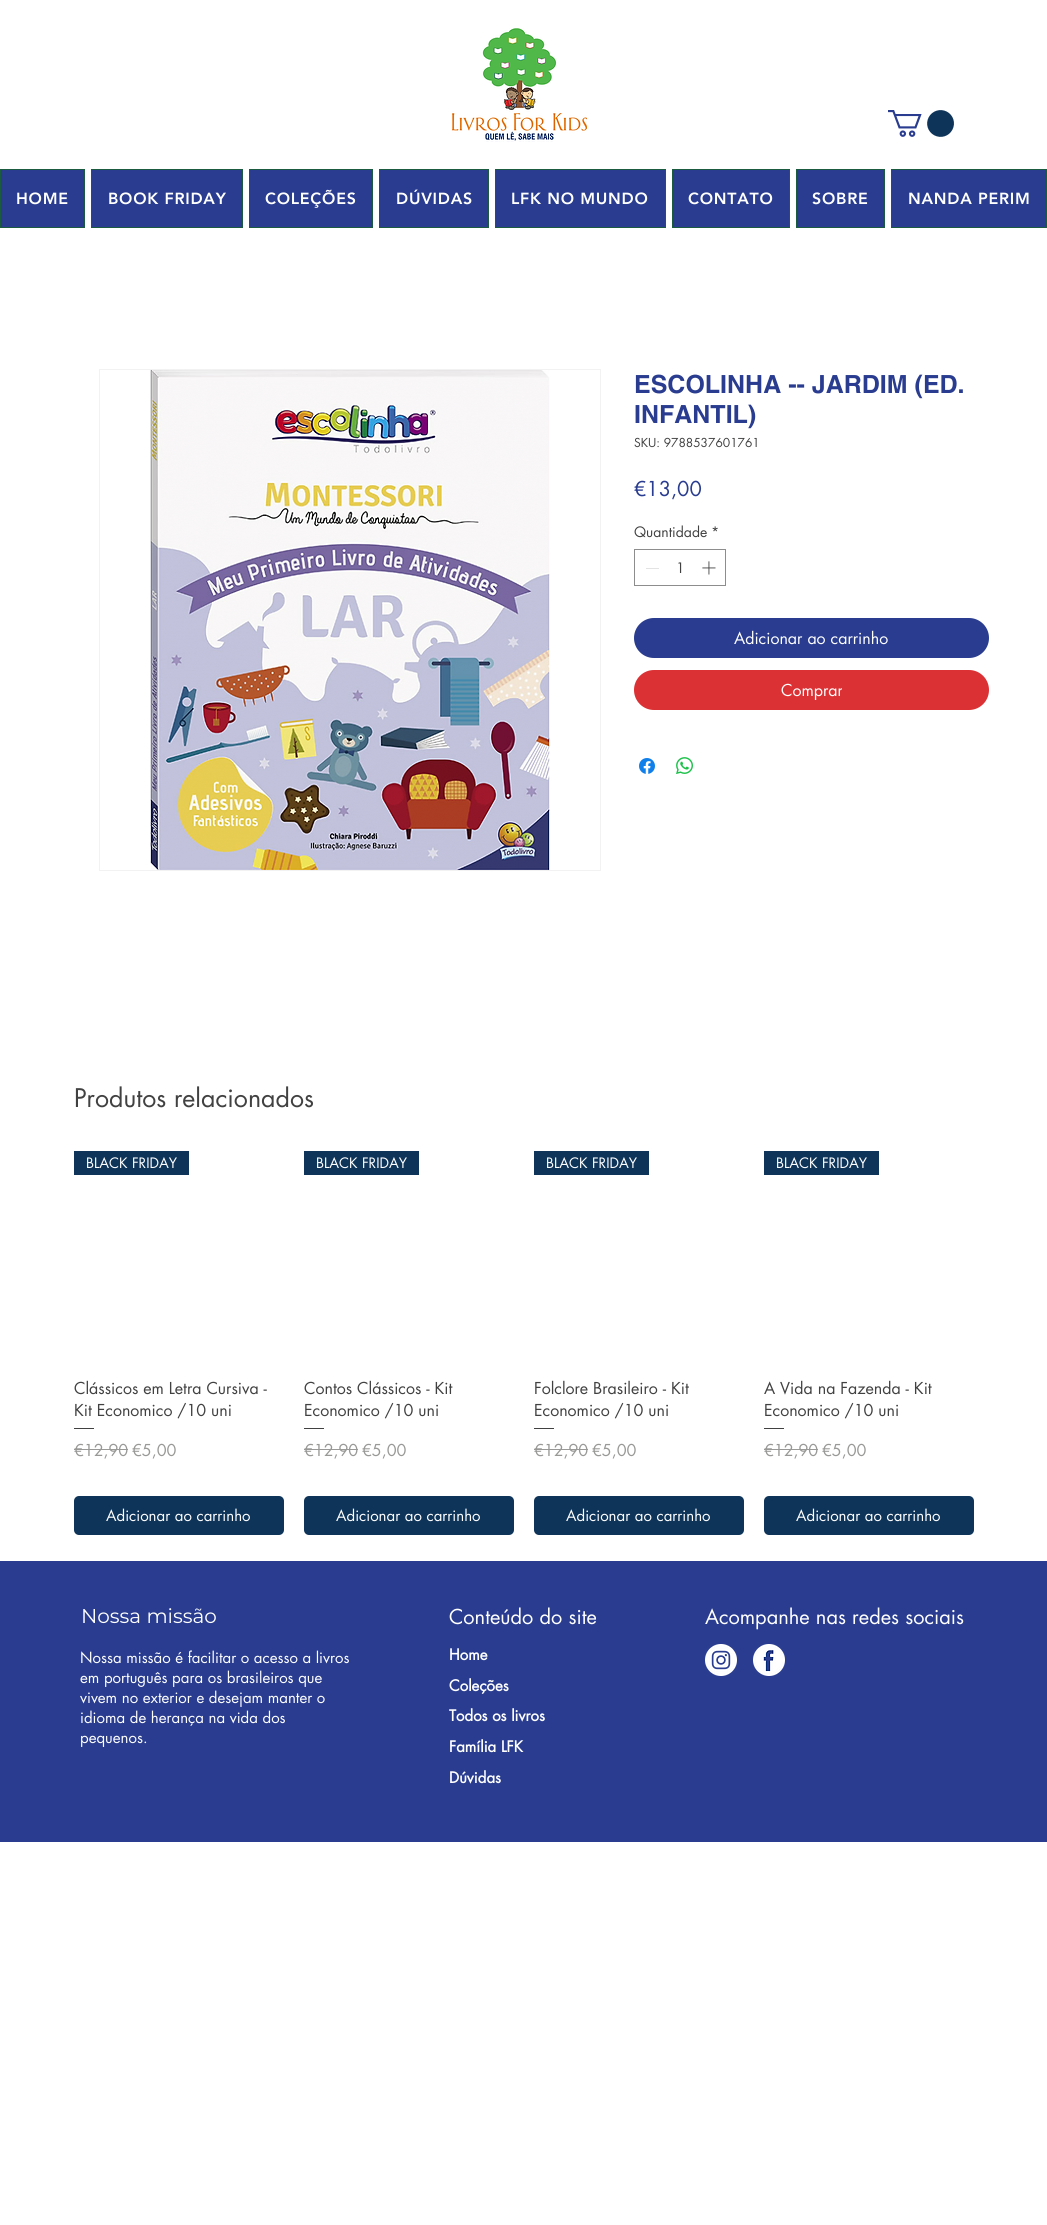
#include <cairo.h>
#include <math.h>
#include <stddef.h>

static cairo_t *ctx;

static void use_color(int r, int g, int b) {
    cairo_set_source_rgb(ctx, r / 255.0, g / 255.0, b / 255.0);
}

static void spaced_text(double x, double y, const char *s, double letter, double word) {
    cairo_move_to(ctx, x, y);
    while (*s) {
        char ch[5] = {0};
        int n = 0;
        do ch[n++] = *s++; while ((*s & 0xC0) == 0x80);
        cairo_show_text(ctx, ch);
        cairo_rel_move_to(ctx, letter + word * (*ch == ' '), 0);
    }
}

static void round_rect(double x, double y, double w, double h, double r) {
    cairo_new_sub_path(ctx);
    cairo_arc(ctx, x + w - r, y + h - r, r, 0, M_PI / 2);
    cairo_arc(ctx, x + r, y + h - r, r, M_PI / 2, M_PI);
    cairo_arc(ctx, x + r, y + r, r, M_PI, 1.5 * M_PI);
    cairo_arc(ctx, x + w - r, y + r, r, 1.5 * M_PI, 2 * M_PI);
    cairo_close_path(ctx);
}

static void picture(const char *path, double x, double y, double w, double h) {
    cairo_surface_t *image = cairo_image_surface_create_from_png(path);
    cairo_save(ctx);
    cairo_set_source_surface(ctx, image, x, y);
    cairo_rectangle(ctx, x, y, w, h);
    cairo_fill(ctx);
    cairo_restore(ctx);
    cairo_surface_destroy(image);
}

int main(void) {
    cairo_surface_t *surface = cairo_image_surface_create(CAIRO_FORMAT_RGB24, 1047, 2225);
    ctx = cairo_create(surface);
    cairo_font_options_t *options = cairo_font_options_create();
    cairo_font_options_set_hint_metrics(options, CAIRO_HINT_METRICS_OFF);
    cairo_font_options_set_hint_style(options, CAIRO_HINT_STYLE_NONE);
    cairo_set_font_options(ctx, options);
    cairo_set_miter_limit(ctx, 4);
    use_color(255, 255, 255);
    cairo_paint(ctx);
    picture("img1.png", 451, 28, 137, 114);
    picture("img2.png", 888, 110, 66, 27);
    use_color(41, 60, 143);
    cairo_rectangle(ctx, 0.5, 169.5, 84, 58);
    cairo_fill_preserve(ctx);
    use_color(27, 91, 63);
    cairo_set_line_width(ctx, 1);
    cairo_stroke(ctx);
    cairo_select_font_face(ctx, "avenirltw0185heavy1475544 Black", CAIRO_FONT_SLANT_NORMAL, CAIRO_FONT_WEIGHT_NORMAL);
    cairo_set_font_size(ctx, 16);
    use_color(255, 255, 255);
    spaced_text(16, 204, "HOME", 0.75, 0);
    use_color(41, 60, 143);
    cairo_rectangle(ctx, 91.5, 169.5, 151, 58);
    cairo_fill_preserve(ctx);
    use_color(27, 91, 63);
    cairo_stroke(ctx);
    use_color(255, 255, 255);
    spaced_text(108, 204, "BOOK FRIDAY", 0.75, 0);
    use_color(41, 60, 143);
    cairo_rectangle(ctx, 249.5, 169.5, 123, 58);
    cairo_fill_preserve(ctx);
    use_color(27, 91, 63);
    cairo_stroke(ctx);
    use_color(255, 255, 255);
    spaced_text(265, 204, "COLEÇÕES", 0.75, 0);
    use_color(41, 60, 143);
    cairo_rectangle(ctx, 379.5, 169.5, 109, 58);
    cairo_fill_preserve(ctx);
    use_color(27, 91, 63);
    cairo_stroke(ctx);
    use_color(255, 255, 255);
    spaced_text(396, 204, "DÚVIDAS", 0.75, 0);
    use_color(41, 60, 143);
    cairo_rectangle(ctx, 495.5, 169.5, 170, 58);
    cairo_fill_preserve(ctx);
    use_color(27, 91, 63);
    cairo_stroke(ctx);
    use_color(255, 255, 255);
    spaced_text(511, 204, "LFK NO MUNDO", 0.75, 0);
    use_color(41, 60, 143);
    cairo_rectangle(ctx, 672.5, 169.5, 117, 58);
    cairo_fill_preserve(ctx);
    use_color(27, 91, 63);
    cairo_stroke(ctx);
    use_color(255, 255, 255);
    spaced_text(688, 204, "CONTATO", 0.75, 0);
    use_color(41, 60, 143);
    cairo_rectangle(ctx, 796.5, 169.5, 88, 58);
    cairo_fill_preserve(ctx);
    use_color(27, 91, 63);
    cairo_stroke(ctx);
    use_color(255, 255, 255);
    spaced_text(812, 204, "SOBRE", 0.75, 0);
    use_color(41, 60, 143);
    cairo_rectangle(ctx, 891.5, 169.5, 155, 58);
    cairo_fill_preserve(ctx);
    use_color(27, 91, 63);
    cairo_stroke(ctx);
    use_color(255, 255, 255);
    spaced_text(908, 204, "NANDA PERIM", 0.75, 0);
    cairo_rectangle(ctx, 99.5, 369.5, 501, 501);
    use_color(242, 242, 242);
    cairo_stroke(ctx);
    picture("img3.png", 150, 370, 400, 500);
    cairo_select_font_face(ctx, "helvetica", CAIRO_FONT_SLANT_NORMAL, CAIRO_FONT_WEIGHT_BOLD);
    cairo_set_font_size(ctx, 25);
    use_color(41, 60, 143);
    cairo_move_to(ctx, 634, 393);
    cairo_show_text(ctx, "ESCOLINHA -- JARDIM (ED.");
    cairo_move_to(ctx, 634, 423);
    cairo_show_text(ctx, "INFANTIL)");
    cairo_select_font_face(ctx, "futura", CAIRO_FONT_SLANT_NORMAL, CAIRO_FONT_WEIGHT_NORMAL);
    cairo_set_font_size(ctx, 12);
    use_color(65, 65, 65);
    cairo_move_to(ctx, 634, 447);
    cairo_show_text(ctx, "SKU: 9788537601761");
    cairo_set_font_size(ctx, 20);
    use_color(41, 60, 143);
    cairo_move_to(ctx, 634, 496);
    cairo_show_text(ctx, "€13,00");
    cairo_set_font_size(ctx, 14);
    use_color(65, 65, 65);
    cairo_move_to(ctx, 634, 537);
    cairo_show_text(ctx, "Quantidade");
    cairo_move_to(ctx, 711, 537);
    cairo_show_text(ctx, "*");
    cairo_rectangle(ctx, 634.5, 549.5, 91, 36);
    use_color(141, 141, 141);
    cairo_stroke(ctx);
    use_color(227, 227, 227);
    cairo_rectangle(ctx, 646, 568, 13, 1);
    cairo_fill(ctx);
    use_color(65, 65, 65);
    cairo_move_to(ctx, 676, 573);
    cairo_show_text(ctx, "1");
    picture("img4.png", 702, 561, 14, 14);
    use_color(41, 60, 143);
    round_rect(634, 618, 355, 40, 20);
    cairo_fill(ctx);
    cairo_set_font_size(ctx, 16);
    use_color(255, 255, 255);
    cairo_move_to(ctx, 734, 644);
    cairo_show_text(ctx, "Adicionar ao carrinho");
    use_color(220, 49, 52);
    round_rect(634, 670, 355, 40, 20);
    cairo_fill(ctx);
    cairo_save(ctx);
    cairo_rectangle(ctx, 781, 680, 61, 20);
    cairo_clip(ctx);
    use_color(255, 255, 255);
    cairo_move_to(ctx, 781, 696);
    cairo_show_text(ctx, "Comprar");
    cairo_restore(ctx);
    picture("img5.png", 639, 758, 16, 16);
    picture("img6.png", 676, 757, 17, 17);
    cairo_set_font_size(ctx, 25);
    use_color(65, 65, 65);
    cairo_move_to(ctx, 74, 1107);
    cairo_show_text(ctx, "Produtos relacionados");
    use_color(14, 52, 90);
    cairo_rectangle(ctx, 74, 1151, 115, 24);
    cairo_fill(ctx);
    cairo_set_font_size(ctx, 14);
    use_color(255, 255, 255);
    cairo_move_to(ctx, 86, 1168);
    cairo_show_text(ctx, "BLACK FRIDAY");
    cairo_set_font_size(ctx, 16);
    use_color(65, 65, 65);
    cairo_move_to(ctx, 74, 1394);
    cairo_show_text(ctx, "Clássicos em Letra Cursiva -");
    cairo_move_to(ctx, 74, 1416);
    cairo_show_text(ctx, "Kit Economico /10 uni");
    cairo_rectangle(ctx, 74, 1428, 20, 1);
    cairo_fill(ctx);
    use_color(153, 153, 151);
    cairo_move_to(ctx, 74, 1456);
    cairo_show_text(ctx, "€12,90");
    cairo_rectangle(ctx, 74, 1449, 54, 1);
    cairo_fill(ctx);
    cairo_move_to(ctx, 132, 1456);
    cairo_show_text(ctx, "€5,00");
    use_color(14, 52, 90);
    round_rect(74, 1496, 210, 39, 5);
    cairo_fill(ctx);
    cairo_set_font_size(ctx, 15);
    use_color(255, 255, 255);
    cairo_move_to(ctx, 106, 1521);
    cairo_show_text(ctx, "Adicionar ao carrinho");
    use_color(14, 52, 90);
    cairo_rectangle(ctx, 304, 1151, 115, 24);
    cairo_fill(ctx);
    cairo_set_font_size(ctx, 14);
    use_color(255, 255, 255);
    cairo_move_to(ctx, 316, 1168);
    cairo_show_text(ctx, "BLACK FRIDAY");
    cairo_set_font_size(ctx, 16);
    use_color(65, 65, 65);
    cairo_move_to(ctx, 304, 1394);
    cairo_show_text(ctx, "Contos Clássicos - Kit");
    cairo_move_to(ctx, 304, 1416);
    cairo_show_text(ctx, "Economico /10 uni");
    cairo_rectangle(ctx, 304, 1428, 20, 1);
    cairo_fill(ctx);
    use_color(153, 153, 151);
    cairo_move_to(ctx, 304, 1456);
    cairo_show_text(ctx, "€12,90");
    cairo_rectangle(ctx, 304, 1449, 54, 1);
    cairo_fill(ctx);
    cairo_move_to(ctx, 362, 1456);
    cairo_show_text(ctx, "€5,00");
    use_color(14, 52, 90);
    round_rect(304, 1496, 210, 39, 5);
    cairo_fill(ctx);
    cairo_set_font_size(ctx, 15);
    use_color(255, 255, 255);
    cairo_move_to(ctx, 336, 1521);
    cairo_show_text(ctx, "Adicionar ao carrinho");
    use_color(14, 52, 90);
    cairo_rectangle(ctx, 534, 1151, 115, 24);
    cairo_fill(ctx);
    cairo_set_font_size(ctx, 14);
    use_color(255, 255, 255);
    cairo_move_to(ctx, 546, 1168);
    cairo_show_text(ctx, "BLACK FRIDAY");
    cairo_set_font_size(ctx, 16);
    use_color(65, 65, 65);
    cairo_move_to(ctx, 534, 1394);
    cairo_show_text(ctx, "Folclore Brasileiro - Kit");
    cairo_move_to(ctx, 534, 1416);
    cairo_show_text(ctx, "Economico /10 uni");
    cairo_rectangle(ctx, 534, 1428, 20, 1);
    cairo_fill(ctx);
    use_color(153, 153, 151);
    cairo_move_to(ctx, 534, 1456);
    cairo_show_text(ctx, "€12,90");
    cairo_rectangle(ctx, 534, 1449, 54, 1);
    cairo_fill(ctx);
    cairo_move_to(ctx, 592, 1456);
    cairo_show_text(ctx, "€5,00");
    use_color(14, 52, 90);
    round_rect(534, 1496, 210, 39, 5);
    cairo_fill(ctx);
    cairo_set_font_size(ctx, 15);
    use_color(255, 255, 255);
    cairo_move_to(ctx, 566, 1521);
    cairo_show_text(ctx, "Adicionar ao carrinho");
    use_color(14, 52, 90);
    cairo_rectangle(ctx, 764, 1151, 115, 24);
    cairo_fill(ctx);
    cairo_set_font_size(ctx, 14);
    use_color(255, 255, 255);
    cairo_move_to(ctx, 776, 1168);
    cairo_show_text(ctx, "BLACK FRIDAY");
    cairo_set_font_size(ctx, 16);
    use_color(65, 65, 65);
    cairo_move_to(ctx, 764, 1394);
    cairo_show_text(ctx, "A Vida na Fazenda - Kit");
    cairo_move_to(ctx, 764, 1416);
    cairo_show_text(ctx, "Economico /10 uni");
    cairo_rectangle(ctx, 764, 1428, 20, 1);
    cairo_fill(ctx);
    use_color(153, 153, 151);
    cairo_move_to(ctx, 764, 1456);
    cairo_show_text(ctx, "€12,90");
    cairo_rectangle(ctx, 764, 1449, 54, 1);
    cairo_fill(ctx);
    cairo_move_to(ctx, 822, 1456);
    cairo_show_text(ctx, "€5,00");
    use_color(14, 52, 90);
    round_rect(764, 1496, 210, 39, 5);
    cairo_fill(ctx);
    cairo_set_font_size(ctx, 15);
    use_color(255, 255, 255);
    cairo_move_to(ctx, 796, 1521);
    cairo_show_text(ctx, "Adicionar ao carrinho");
    use_color(41, 60, 143);
    cairo_rectangle(ctx, 0, 1561, 1047, 281);
    cairo_fill(ctx);
    cairo_select_font_face(ctx, "Montserrat", CAIRO_FONT_SLANT_NORMAL, CAIRO_FONT_WEIGHT_NORMAL);
    cairo_set_font_size(ctx, 20);
    use_color(255, 255, 255);
    cairo_move_to(ctx, 81, 1623);
    cairo_show_text(ctx, "Nossa missão");
    cairo_select_font_face(ctx, "futura", CAIRO_FONT_SLANT_NORMAL, CAIRO_FONT_WEIGHT_NORMAL);
    cairo_move_to(ctx, 449, 1624);
    cairo_show_text(ctx, "Conteúdo do site");
    cairo_select_font_face(ctx, "futura", CAIRO_FONT_SLANT_NORMAL, CAIRO_FONT_WEIGHT_BOLD);
    cairo_set_font_size(ctx, 15);
    cairo_move_to(ctx, 449, 1660);
    cairo_show_text(ctx, "Home");
    cairo_move_to(ctx, 449, 1691);
    cairo_show_text(ctx, "Coleções");
    cairo_move_to(ctx, 449, 1721);
    cairo_show_text(ctx, "Todos os livros");
    cairo_move_to(ctx, 449, 1752);
    cairo_show_text(ctx, "Família LFK");
    cairo_move_to(ctx, 449, 1783);
    cairo_show_text(ctx, "Dúvidas");
    cairo_select_font_face(ctx, "futura", CAIRO_FONT_SLANT_NORMAL, CAIRO_FONT_WEIGHT_NORMAL);
    cairo_set_font_size(ctx, 20);
    cairo_move_to(ctx, 705, 1624);
    cairo_show_text(ctx, "Acompanhe nas redes sociais");
    picture("img7.png", 705, 1644, 32, 32);
    picture("img8.png", 753, 1644, 32, 32);
    cairo_set_font_size(ctx, 15);
    cairo_move_to(ctx, 80, 1663);
    cairo_show_text(ctx, "Nossa missão é facilitar o acesso a livros");
    cairo_move_to(ctx, 80, 1683);
    cairo_show_text(ctx, "em português para os brasileiros que");
    cairo_move_to(ctx, 80, 1703);
    cairo_show_text(ctx, "vivem no exterior e desejam manter o");
    cairo_move_to(ctx, 80, 1723);
    cairo_show_text(ctx, "idioma de herança na vida dos");
    cairo_move_to(ctx, 80, 1743);
    cairo_show_text(ctx, "pequenos.");
    cairo_surface_write_to_png(surface, "result.png");
    cairo_font_options_destroy(options);
    cairo_destroy(ctx);
    cairo_surface_destroy(surface);
    return 0;
}
